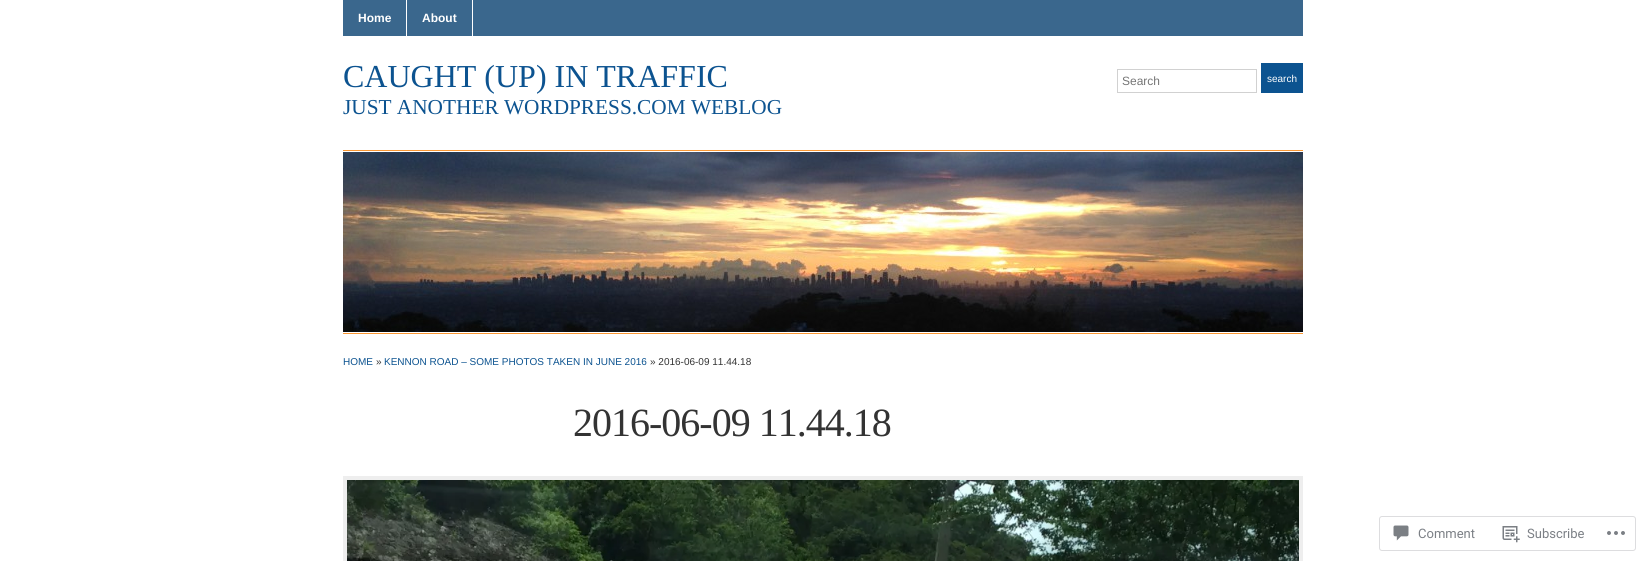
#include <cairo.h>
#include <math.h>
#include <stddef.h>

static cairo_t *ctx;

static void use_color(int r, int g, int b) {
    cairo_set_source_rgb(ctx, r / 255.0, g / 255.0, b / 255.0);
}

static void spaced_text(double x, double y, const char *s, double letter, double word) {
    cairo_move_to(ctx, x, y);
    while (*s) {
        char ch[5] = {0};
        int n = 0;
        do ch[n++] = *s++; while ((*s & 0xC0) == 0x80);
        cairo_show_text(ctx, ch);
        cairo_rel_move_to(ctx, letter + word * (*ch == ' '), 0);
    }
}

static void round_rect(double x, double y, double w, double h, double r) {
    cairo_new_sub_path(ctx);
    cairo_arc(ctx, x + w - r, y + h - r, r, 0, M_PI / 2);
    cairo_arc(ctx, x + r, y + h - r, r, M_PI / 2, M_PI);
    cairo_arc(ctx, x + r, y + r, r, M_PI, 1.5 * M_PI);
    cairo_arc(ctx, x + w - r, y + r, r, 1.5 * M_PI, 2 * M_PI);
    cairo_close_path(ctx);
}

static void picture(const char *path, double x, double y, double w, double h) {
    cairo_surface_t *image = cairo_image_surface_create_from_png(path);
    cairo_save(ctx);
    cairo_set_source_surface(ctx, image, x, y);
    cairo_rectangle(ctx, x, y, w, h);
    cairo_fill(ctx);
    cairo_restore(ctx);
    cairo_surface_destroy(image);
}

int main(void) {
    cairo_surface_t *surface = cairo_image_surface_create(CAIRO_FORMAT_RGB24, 1646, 561);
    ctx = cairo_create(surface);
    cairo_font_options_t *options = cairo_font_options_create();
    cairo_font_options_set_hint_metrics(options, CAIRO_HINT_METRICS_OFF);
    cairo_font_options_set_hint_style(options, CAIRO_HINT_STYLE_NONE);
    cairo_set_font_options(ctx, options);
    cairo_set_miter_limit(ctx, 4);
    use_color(255, 255, 255);
    cairo_paint(ctx);
    use_color(58, 103, 141);
    cairo_rectangle(ctx, 343, 0, 960, 36);
    cairo_fill(ctx);
    use_color(255, 255, 255);
    cairo_rectangle(ctx, 406, 0, 1, 36);
    cairo_fill(ctx);
    cairo_select_font_face(ctx, "Liberation Sans", CAIRO_FONT_SLANT_NORMAL, CAIRO_FONT_WEIGHT_BOLD);
    cairo_set_font_size(ctx, 12);
    cairo_move_to(ctx, 358, 22);
    cairo_show_text(ctx, "Home");
    cairo_rectangle(ctx, 472, 0, 1, 36);
    cairo_fill(ctx);
    cairo_move_to(ctx, 422, 22);
    cairo_show_text(ctx, "About");
    cairo_select_font_face(ctx, "Liberation Serif", CAIRO_FONT_SLANT_NORMAL, CAIRO_FONT_WEIGHT_NORMAL);
    cairo_set_font_size(ctx, 32);
    use_color(12, 83, 144);
    cairo_move_to(ctx, 343, 87);
    cairo_show_text(ctx, "CAUGHT (UP) IN TRAFFIC");
    cairo_set_font_size(ctx, 21.3);
    cairo_move_to(ctx, 343, 114);
    cairo_show_text(ctx, "JUST ANOTHER WORDPRESS.COM WEBLOG");
    cairo_rectangle(ctx, 1117.5, 69.5, 139, 23);
    use_color(209, 209, 209);
    cairo_set_line_width(ctx, 1);
    cairo_stroke(ctx);
    cairo_select_font_face(ctx, "Liberation Sans", CAIRO_FONT_SLANT_NORMAL, CAIRO_FONT_WEIGHT_NORMAL);
    cairo_set_font_size(ctx, 12);
    use_color(117, 117, 117);
    cairo_move_to(ctx, 1122, 85);
    cairo_show_text(ctx, "Search");
    use_color(12, 83, 144);
    cairo_rectangle(ctx, 1261, 63, 42, 30);
    cairo_fill(ctx);
    cairo_set_font_size(ctx, 10);
    use_color(255, 255, 255);
    cairo_move_to(ctx, 1267, 82);
    cairo_show_text(ctx, "search");
    use_color(249, 151, 52);
    cairo_rectangle(ctx, 343, 150, 960, 1);
    cairo_fill(ctx);
    cairo_rectangle(ctx, 343, 333, 960, 1);
    cairo_fill(ctx);
    picture("img1.png", 343, 152, 960, 180);
    use_color(12, 83, 144);
    cairo_move_to(ctx, 343, 365);
    cairo_show_text(ctx, "HOME");
    use_color(51, 51, 51);
    cairo_move_to(ctx, 376, 365);
    cairo_show_text(ctx, "»");
    use_color(12, 83, 144);
    cairo_move_to(ctx, 384, 365);
    cairo_show_text(ctx, "KENNON ROAD – SOME PHOTOS TAKEN IN JUNE 2016");
    use_color(51, 51, 51);
    cairo_move_to(ctx, 650, 365);
    cairo_show_text(ctx, "» 2016-06-09 11.44.18");
    cairo_select_font_face(ctx, "Liberation Serif", CAIRO_FONT_SLANT_NORMAL, CAIRO_FONT_WEIGHT_NORMAL);
    cairo_set_font_size(ctx, 40);
    spaced_text(573, 436, "2016-06-09 11.44.18", -1, 0);
    cairo_rectangle(ctx, 345, 478, 956, 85);
    use_color(238, 238, 238);
    cairo_set_line_width(ctx, 4);
    cairo_stroke(ctx);
    picture("img2.png", 347, 480, 952, 81);
    round_rect(1379.5, 516.5, 256, 34, 2.5);
    use_color(221, 221, 223);
    cairo_set_line_width(ctx, 1);
    cairo_stroke(ctx);
    picture("img3.png", 1393, 525, 16, 16);
    cairo_select_font_face(ctx, "Roboto", CAIRO_FONT_SLANT_NORMAL, CAIRO_FONT_WEIGHT_NORMAL);
    cairo_set_font_size(ctx, 13);
    use_color(123, 127, 133);
    cairo_move_to(ctx, 1418, 538);
    cairo_show_text(ctx, "Comment");
    picture("img4.png", 1502, 526, 18, 17);
    cairo_move_to(ctx, 1527, 538);
    cairo_show_text(ctx, "Subscribe");
    picture("img5.png", 1607, 531, 18, 4);
    cairo_surface_write_to_png(surface, "result.png");
    cairo_font_options_destroy(options);
    cairo_destroy(ctx);
    cairo_surface_destroy(surface);
    return 0;
}
